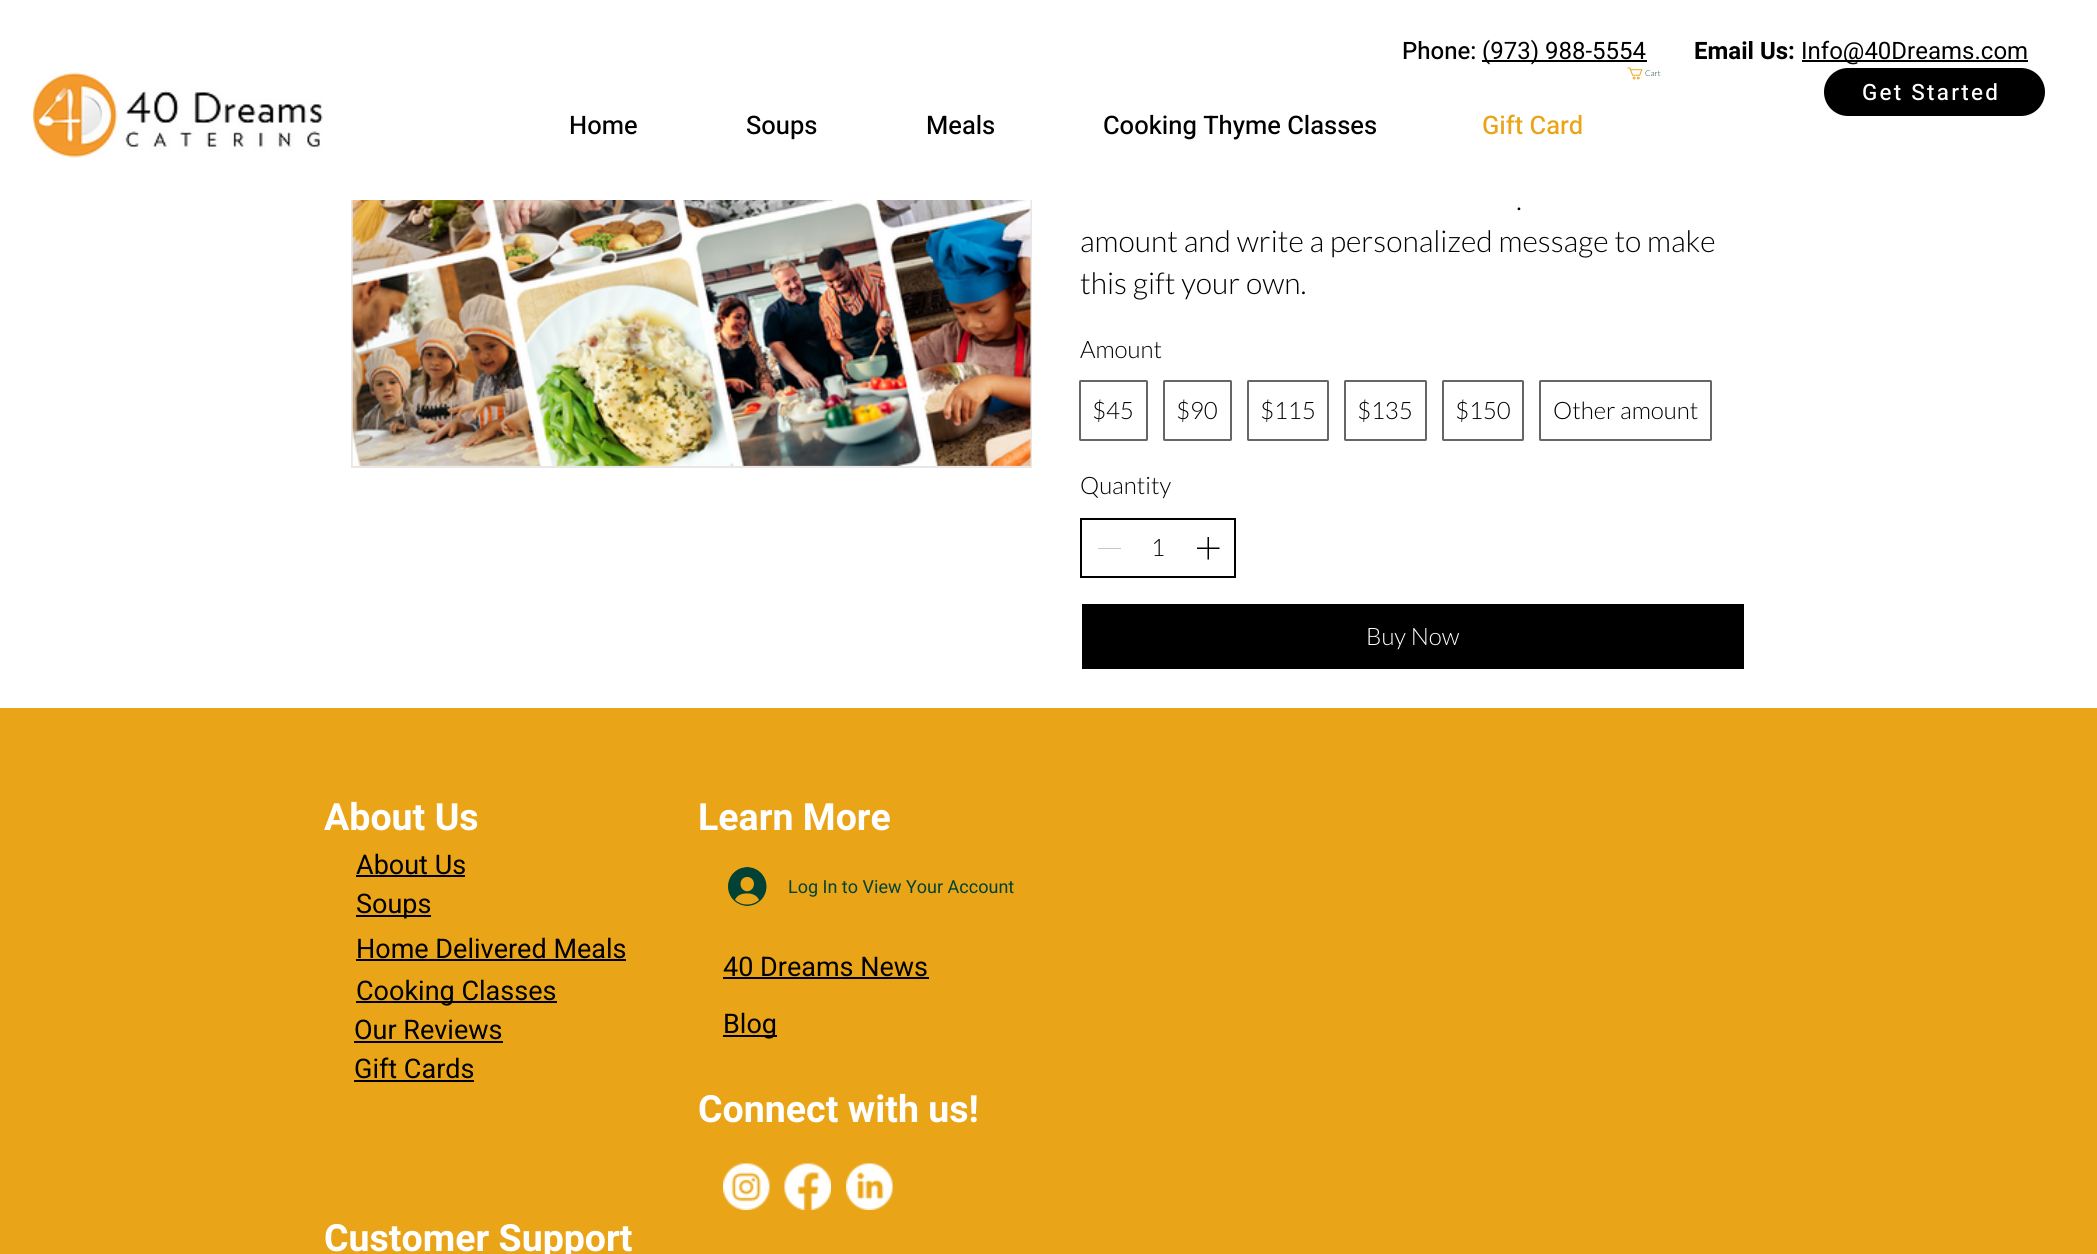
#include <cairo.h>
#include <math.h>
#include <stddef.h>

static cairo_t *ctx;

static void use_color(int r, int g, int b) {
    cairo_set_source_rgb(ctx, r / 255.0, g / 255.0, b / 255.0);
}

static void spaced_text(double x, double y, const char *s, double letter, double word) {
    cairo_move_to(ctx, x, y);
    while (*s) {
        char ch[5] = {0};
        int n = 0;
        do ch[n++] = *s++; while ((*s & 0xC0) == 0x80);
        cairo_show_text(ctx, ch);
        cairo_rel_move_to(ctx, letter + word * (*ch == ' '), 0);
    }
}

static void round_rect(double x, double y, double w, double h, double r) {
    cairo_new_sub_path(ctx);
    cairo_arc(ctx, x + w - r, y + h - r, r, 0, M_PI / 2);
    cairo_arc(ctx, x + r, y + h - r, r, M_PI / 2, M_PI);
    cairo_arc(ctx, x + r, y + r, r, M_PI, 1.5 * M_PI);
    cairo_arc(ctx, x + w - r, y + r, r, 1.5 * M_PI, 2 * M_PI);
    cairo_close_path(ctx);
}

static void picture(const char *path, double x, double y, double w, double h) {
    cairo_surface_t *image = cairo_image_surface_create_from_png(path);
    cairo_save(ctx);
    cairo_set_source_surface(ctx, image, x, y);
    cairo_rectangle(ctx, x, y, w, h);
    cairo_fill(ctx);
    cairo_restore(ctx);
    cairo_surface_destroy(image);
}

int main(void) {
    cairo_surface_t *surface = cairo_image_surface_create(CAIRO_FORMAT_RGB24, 2097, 1254);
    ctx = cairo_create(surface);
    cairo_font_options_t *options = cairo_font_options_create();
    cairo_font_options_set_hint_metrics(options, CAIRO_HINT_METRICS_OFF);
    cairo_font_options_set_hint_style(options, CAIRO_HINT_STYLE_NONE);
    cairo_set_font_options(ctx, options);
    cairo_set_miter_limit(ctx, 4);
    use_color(255, 255, 255);
    cairo_paint(ctx);
    cairo_rectangle(ctx, 352, 15, 679, 452);
    use_color(232, 230, 230);
    cairo_stroke(ctx);
    use_color(255, 255, 255);
    cairo_rectangle(ctx, 351, 14, 681, 186);
    cairo_fill(ctx);
    picture("img1.png", 33, 72, 290, 86);
    cairo_select_font_face(ctx, "Heebo Medium", CAIRO_FONT_SLANT_NORMAL, CAIRO_FONT_WEIGHT_NORMAL);
    cairo_set_font_size(ctx, 24);
    use_color(0, 0, 0);
    cairo_move_to(ctx, 1402, 59);
    cairo_show_text(ctx, "Phone:");
    cairo_rectangle(ctx, 1482, 60, 165, 2);
    cairo_fill(ctx);
    cairo_select_font_face(ctx, "Heebo", CAIRO_FONT_SLANT_NORMAL, CAIRO_FONT_WEIGHT_NORMAL);
    cairo_move_to(ctx, 1482, 59);
    cairo_show_text(ctx, "(973) 988-5554");
    cairo_select_font_face(ctx, "Heebo", CAIRO_FONT_SLANT_NORMAL, CAIRO_FONT_WEIGHT_BOLD);
    cairo_move_to(ctx, 1694, 59);
    cairo_show_text(ctx, "Email Us:");
    cairo_rectangle(ctx, 1802, 60, 226, 2);
    cairo_fill(ctx);
    cairo_select_font_face(ctx, "Heebo", CAIRO_FONT_SLANT_NORMAL, CAIRO_FONT_WEIGHT_NORMAL);
    cairo_move_to(ctx, 1801, 59);
    cairo_show_text(ctx, "Info@40Dreams.com");
    picture("img2.png", 1627, 67, 16, 13);
    cairo_select_font_face(ctx, "Lato Light", CAIRO_FONT_SLANT_NORMAL, CAIRO_FONT_WEIGHT_NORMAL);
    cairo_set_font_size(ctx, 8);
    use_color(1, 66, 53);
    cairo_move_to(ctx, 1645, 76);
    cairo_show_text(ctx, "Cart");
    use_color(0, 0, 0);
    round_rect(1824, 68, 221, 48, 24);
    cairo_fill(ctx);
    cairo_select_font_face(ctx, "Heebo Medium", CAIRO_FONT_SLANT_NORMAL, CAIRO_FONT_WEIGHT_NORMAL);
    cairo_set_font_size(ctx, 22.5);
    use_color(255, 255, 255);
    spaced_text(1862, 100, "Get Started", 2.25, 0);
    cairo_set_font_size(ctx, 25.5);
    use_color(0, 0, 0);
    cairo_move_to(ctx, 569, 134);
    cairo_show_text(ctx, "Home");
    cairo_move_to(ctx, 746, 134);
    cairo_show_text(ctx, "Soups");
    cairo_move_to(ctx, 926, 134);
    cairo_show_text(ctx, "Meals");
    cairo_move_to(ctx, 1103, 134);
    cairo_show_text(ctx, "Cooking Thyme Classes");
    use_color(233, 164, 23);
    cairo_move_to(ctx, 1482, 134);
    cairo_show_text(ctx, "Gift Card");
    picture("img3.png", 352, 200, 679, 266);
    cairo_select_font_face(ctx, "Lato Light", CAIRO_FONT_SLANT_NORMAL, CAIRO_FONT_WEIGHT_NORMAL);
    cairo_set_font_size(ctx, 30);
    use_color(0, 0, 0);
    cairo_move_to(ctx, 1516, 210);
    cairo_show_text(ctx, ".");
    cairo_move_to(ctx, 1080, 252);
    cairo_show_text(ctx, "amount and write a personalized message to make");
    cairo_move_to(ctx, 1080, 294);
    cairo_show_text(ctx, "this gift your own.");
    cairo_set_font_size(ctx, 24);
    cairo_move_to(ctx, 1080, 358);
    cairo_show_text(ctx, "Amount");
    round_rect(1080, 381, 67, 59, 0.5);
    use_color(102, 102, 102);
    cairo_stroke(ctx);
    use_color(0, 0, 0);
    cairo_move_to(ctx, 1092, 419);
    cairo_show_text(ctx, "$45");
    round_rect(1164, 381, 67, 59, 0.5);
    use_color(102, 102, 102);
    cairo_stroke(ctx);
    use_color(0, 0, 0);
    cairo_move_to(ctx, 1176, 419);
    cairo_show_text(ctx, "$90");
    round_rect(1248, 381, 80, 59, 0.5);
    use_color(102, 102, 102);
    cairo_stroke(ctx);
    use_color(0, 0, 0);
    cairo_move_to(ctx, 1260, 419);
    cairo_show_text(ctx, "$115");
    round_rect(1345, 381, 81, 59, 0.5);
    use_color(102, 102, 102);
    cairo_stroke(ctx);
    use_color(0, 0, 0);
    cairo_move_to(ctx, 1357, 419);
    cairo_show_text(ctx, "$135");
    round_rect(1443, 381, 80, 59, 0.5);
    use_color(102, 102, 102);
    cairo_stroke(ctx);
    use_color(0, 0, 0);
    cairo_move_to(ctx, 1455, 419);
    cairo_show_text(ctx, "$150");
    round_rect(1540, 381, 171, 59, 0.5);
    use_color(102, 102, 102);
    cairo_stroke(ctx);
    use_color(0, 0, 0);
    cairo_move_to(ctx, 1553, 419);
    cairo_show_text(ctx, "Other amount");
    cairo_move_to(ctx, 1080, 494);
    cairo_show_text(ctx, "Quantity");
    cairo_rectangle(ctx, 1081, 519, 154, 58);
    cairo_stroke(ctx);
    use_color(199, 199, 199);
    cairo_rectangle(ctx, 1098, 548, 23, 1);
    cairo_fill(ctx);
    use_color(0, 0, 0);
    cairo_move_to(ctx, 1151, 556);
    cairo_show_text(ctx, "1");
    picture("img4.png", 1197, 537, 23, 23);
    round_rect(1081, 603, 664, 67, 0.5);
    cairo_fill_preserve(ctx);
    use_color(255, 255, 255);
    cairo_stroke(ctx);
    cairo_move_to(ctx, 1366, 645);
    cairo_show_text(ctx, "Buy Now");
    use_color(233, 164, 23);
    cairo_rectangle(ctx, 0, 708, 2097, 546);
    cairo_fill(ctx);
    cairo_select_font_face(ctx, "Heebo", CAIRO_FONT_SLANT_NORMAL, CAIRO_FONT_WEIGHT_BOLD);
    cairo_set_font_size(ctx, 37.5);
    use_color(255, 255, 255);
    cairo_move_to(ctx, 324, 830);
    cairo_show_text(ctx, "About Us");
    cairo_move_to(ctx, 698, 830);
    cairo_show_text(ctx, "Learn More");
    cairo_select_font_face(ctx, "Heebo", CAIRO_FONT_SLANT_NORMAL, CAIRO_FONT_WEIGHT_NORMAL);
    cairo_set_font_size(ctx, 27);
    use_color(0, 0, 0);
    cairo_move_to(ctx, 356, 874);
    cairo_show_text(ctx, "About Us");
    cairo_rectangle(ctx, 356, 875, 109, 2);
    cairo_fill(ctx);
    picture("img5.png", 728, 867, 39, 39);
    cairo_select_font_face(ctx, "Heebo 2", CAIRO_FONT_SLANT_NORMAL, CAIRO_FONT_WEIGHT_NORMAL);
    cairo_set_font_size(ctx, 18);
    use_color(1, 66, 53);
    cairo_move_to(ctx, 788, 893);
    cairo_show_text(ctx, "Log In to View Your Account");
    use_color(0, 0, 0);
    cairo_rectangle(ctx, 356, 915, 75, 2);
    cairo_fill(ctx);
    cairo_select_font_face(ctx, "Heebo", CAIRO_FONT_SLANT_NORMAL, CAIRO_FONT_WEIGHT_NORMAL);
    cairo_set_font_size(ctx, 27);
    cairo_move_to(ctx, 356, 913);
    cairo_show_text(ctx, "Soups");
    cairo_move_to(ctx, 356, 958);
    cairo_show_text(ctx, "Home Delivered Meals");
    cairo_rectangle(ctx, 356, 959, 270, 2);
    cairo_fill(ctx);
    cairo_move_to(ctx, 723, 976);
    cairo_show_text(ctx, "40 Dreams News");
    cairo_rectangle(ctx, 723, 977, 206, 2);
    cairo_fill(ctx);
    cairo_rectangle(ctx, 356, 1001, 201, 2);
    cairo_fill(ctx);
    cairo_move_to(ctx, 356, 1000);
    cairo_show_text(ctx, "Cooking Classes");
    cairo_move_to(ctx, 354, 1039);
    cairo_show_text(ctx, "Our Reviews");
    cairo_rectangle(ctx, 354, 1041, 149, 2);
    cairo_fill(ctx);
    cairo_rectangle(ctx, 723, 1035, 54, 2);
    cairo_fill(ctx);
    cairo_move_to(ctx, 723, 1033);
    cairo_show_text(ctx, "Blog");
    cairo_move_to(ctx, 354, 1078);
    cairo_show_text(ctx, "Gift Cards");
    cairo_rectangle(ctx, 354, 1080, 120, 2);
    cairo_fill(ctx);
    cairo_select_font_face(ctx, "Heebo", CAIRO_FONT_SLANT_NORMAL, CAIRO_FONT_WEIGHT_BOLD);
    cairo_set_font_size(ctx, 37.5);
    use_color(255, 255, 255);
    cairo_move_to(ctx, 698, 1122);
    cairo_show_text(ctx, "Connect with us!");
    picture("img6.png", 723, 1163, 47, 47);
    picture("img7.png", 784, 1163, 47, 47);
    picture("img8.png", 846, 1163, 47, 47);
    cairo_move_to(ctx, 324, 1251);
    cairo_show_text(ctx, "Customer Support");
    cairo_surface_write_to_png(surface, "result.png");
    cairo_font_options_destroy(options);
    cairo_destroy(ctx);
    cairo_surface_destroy(surface);
    return 0;
}
